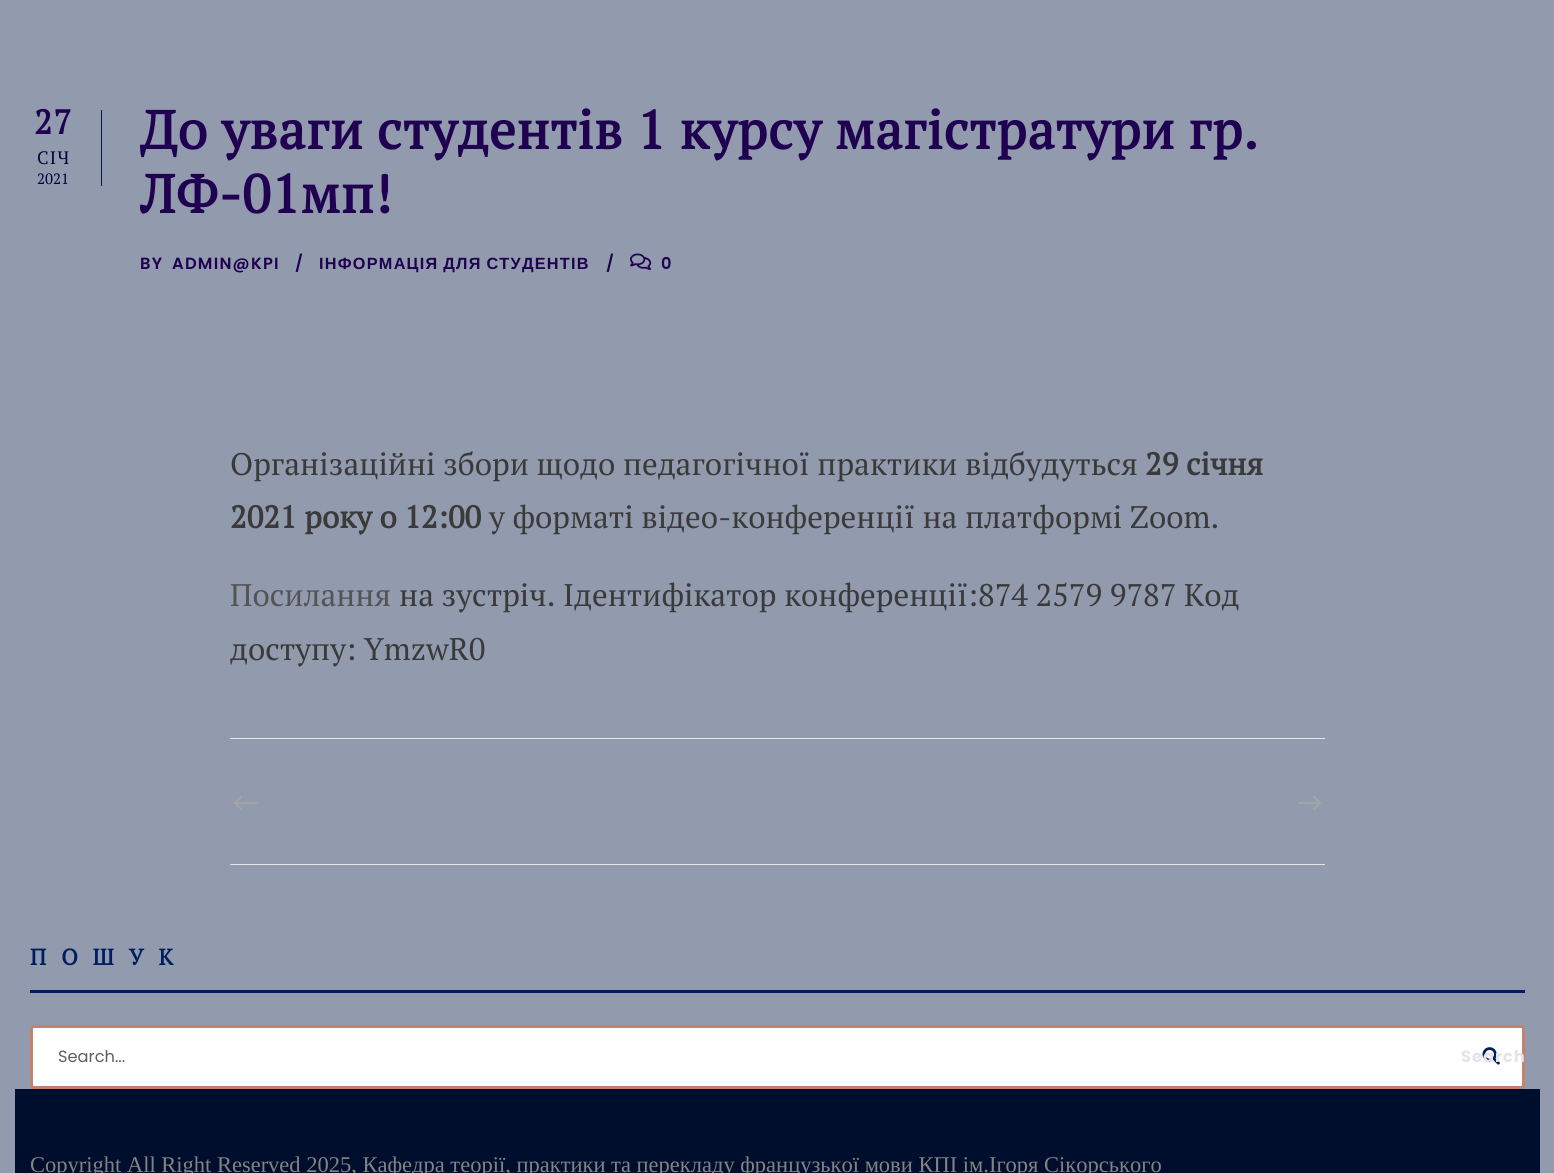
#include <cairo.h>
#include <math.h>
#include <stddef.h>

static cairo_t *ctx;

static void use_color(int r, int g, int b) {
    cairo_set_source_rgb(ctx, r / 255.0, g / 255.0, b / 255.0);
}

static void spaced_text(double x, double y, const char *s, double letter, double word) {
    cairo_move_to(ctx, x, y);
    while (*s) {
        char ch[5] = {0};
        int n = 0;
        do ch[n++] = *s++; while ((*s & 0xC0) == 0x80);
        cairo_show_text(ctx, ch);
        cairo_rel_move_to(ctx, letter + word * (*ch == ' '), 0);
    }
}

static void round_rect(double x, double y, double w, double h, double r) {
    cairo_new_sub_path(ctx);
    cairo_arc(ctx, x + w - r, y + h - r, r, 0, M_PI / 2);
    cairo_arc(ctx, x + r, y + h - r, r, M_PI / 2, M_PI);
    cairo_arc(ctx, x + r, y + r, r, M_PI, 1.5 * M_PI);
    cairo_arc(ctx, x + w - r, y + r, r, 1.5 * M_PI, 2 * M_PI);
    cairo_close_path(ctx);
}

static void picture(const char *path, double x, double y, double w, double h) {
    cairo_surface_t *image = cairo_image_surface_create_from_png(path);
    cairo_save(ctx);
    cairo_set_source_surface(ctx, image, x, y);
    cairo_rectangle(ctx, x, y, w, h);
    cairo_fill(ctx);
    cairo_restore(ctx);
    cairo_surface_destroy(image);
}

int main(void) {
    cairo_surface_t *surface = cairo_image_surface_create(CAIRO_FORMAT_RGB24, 1554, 1173);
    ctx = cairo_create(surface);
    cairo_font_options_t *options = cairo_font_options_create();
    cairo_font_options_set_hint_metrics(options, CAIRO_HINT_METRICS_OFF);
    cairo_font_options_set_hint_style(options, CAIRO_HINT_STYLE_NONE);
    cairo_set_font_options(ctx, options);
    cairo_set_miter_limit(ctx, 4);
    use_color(145, 155, 173);
    cairo_paint(ctx);
    use_color(0, 21, 81);
    cairo_rectangle(ctx, 101, 110, 1, 76);
    cairo_fill(ctx);
    cairo_select_font_face(ctx, "PT Serif", CAIRO_FONT_SLANT_NORMAL, CAIRO_FONT_WEIGHT_BOLD);
    cairo_set_font_size(ctx, 34);
    use_color(31, 0, 81);
    spaced_text(34, 134, "27", 1.25, 0);
    cairo_select_font_face(ctx, "PT Serif", CAIRO_FONT_SLANT_NORMAL, CAIRO_FONT_WEIGHT_NORMAL);
    cairo_set_font_size(ctx, 18);
    use_color(0, 4, 58);
    spaced_text(37, 164, "СІЧ", 1.25, 0);
    cairo_set_font_size(ctx, 15);
    cairo_move_to(ctx, 37, 184);
    cairo_show_text(ctx, "2021");
    cairo_select_font_face(ctx, "PT Serif", CAIRO_FONT_SLANT_NORMAL, CAIRO_FONT_WEIGHT_BOLD);
    cairo_set_font_size(ctx, 53.75);
    use_color(31, 0, 81);
    spaced_text(140, 149, "До уваги студентів 1 курсу магістратури гр.", 0.6, 0);
    cairo_save(ctx);
    cairo_rectangle(ctx, 140, 96, 1385, 185);
    cairo_clip(ctx);
    spaced_text(140, 213, "ЛФ-01мп!", 0.6, 0);
    cairo_restore(ctx);
    cairo_select_font_face(ctx, "Poppins SemiBold", CAIRO_FONT_SLANT_NORMAL, CAIRO_FONT_WEIGHT_NORMAL);
    cairo_set_font_size(ctx, 16.25);
    spaced_text(140, 269, "BY", 1.25, 0);
    spaced_text(172, 269, "ADMIN@KPI", 1.25, 0);
    spaced_text(295, 269, "/", 1.25, 0);
    cairo_select_font_face(ctx, "Liberation Sans", CAIRO_FONT_SLANT_NORMAL, CAIRO_FONT_WEIGHT_BOLD);
    spaced_text(319, 269, "ІНФОРМАЦІЯ ДЛЯ СТУДЕНТІВ", 1.25, -1);
    cairo_select_font_face(ctx, "Poppins SemiBold", CAIRO_FONT_SLANT_NORMAL, CAIRO_FONT_WEIGHT_NORMAL);
    spaced_text(606, 269, "/", 1.25, 0);
    picture("img1.png", 630, 253, 22, 17);
    spaced_text(661, 269, "0", 1.25, 0);
    cairo_select_font_face(ctx, "PT Serif", CAIRO_FONT_SLANT_NORMAL, CAIRO_FONT_WEIGHT_NORMAL);
    cairo_set_font_size(ctx, 31.25);
    use_color(58, 58, 58);
    cairo_move_to(ctx, 230, 475);
    cairo_show_text(ctx, "Організаційні збори щодо педагогічної практики відбудуться");
    cairo_select_font_face(ctx, "PT Serif", CAIRO_FONT_SLANT_NORMAL, CAIRO_FONT_WEIGHT_BOLD);
    cairo_move_to(ctx, 1145, 475);
    cairo_show_text(ctx, "29 січня");
    cairo_move_to(ctx, 230, 528);
    cairo_show_text(ctx, "2021 року о 12:00");
    cairo_select_font_face(ctx, "PT Serif", CAIRO_FONT_SLANT_NORMAL, CAIRO_FONT_WEIGHT_NORMAL);
    cairo_move_to(ctx, 489, 528);
    cairo_show_text(ctx, "у форматі відео-конференції на платформі Zoom.");
    use_color(84, 84, 84);
    cairo_move_to(ctx, 230, 606);
    cairo_show_text(ctx, "Посилання");
    use_color(58, 58, 58);
    cairo_move_to(ctx, 399, 606);
    cairo_show_text(ctx, "на зустріч. Ідентифікатор конференції:874 2579 9787 Код");
    cairo_move_to(ctx, 230, 660);
    cairo_show_text(ctx, "доступу: YmzwR0");
    use_color(230, 230, 230);
    cairo_rectangle(ctx, 230, 738, 1095, 1);
    cairo_fill(ctx);
    cairo_rectangle(ctx, 230, 864, 1095, 1);
    cairo_fill(ctx);
    picture("img2.png", 234, 796, 24, 14);
    picture("img3.png", 1297, 796, 24, 14);
    use_color(0, 29, 96);
    cairo_rectangle(ctx, 30, 990, 1495, 3);
    cairo_fill(ctx);
    cairo_select_font_face(ctx, "PT Serif", CAIRO_FONT_SLANT_NORMAL, CAIRO_FONT_WEIGHT_BOLD);
    cairo_set_font_size(ctx, 22.5);
    spaced_text(30, 965, "ПОШУК", 15, 0);
    use_color(255, 255, 255);
    round_rect(31.5, 1026.5, 1492, 61, 2.5);
    cairo_fill_preserve(ctx);
    use_color(195, 130, 110);
    cairo_set_line_width(ctx, 3);
    cairo_stroke(ctx);
    cairo_select_font_face(ctx, "Poppins", CAIRO_FONT_SLANT_NORMAL, CAIRO_FONT_WEIGHT_NORMAL);
    cairo_set_font_size(ctx, 16.25);
    use_color(94, 94, 94);
    cairo_move_to(ctx, 58, 1062);
    cairo_show_text(ctx, "Search...");
    picture("img4.png", 1482, 1047, 18, 18);
    cairo_select_font_face(ctx, "Poppins", CAIRO_FONT_SLANT_NORMAL, CAIRO_FONT_WEIGHT_BOLD);
    use_color(228, 227, 232);
    spaced_text(1461, 1062, "Search", 1, 0);
    use_color(0, 14, 45);
    cairo_rectangle(ctx, 15, 1089, 1525, 84);
    cairo_fill(ctx);
    cairo_select_font_face(ctx, "Liberation Serif", CAIRO_FONT_SLANT_NORMAL, CAIRO_FONT_WEIGHT_NORMAL);
    cairo_set_font_size(ctx, 22.5);
    use_color(131, 131, 131);
    cairo_move_to(ctx, 30, 1172);
    cairo_show_text(ctx, "Copyright All Right Reserved 2025, Кафедра теорії, практики та перекладу французької мови КПІ ім.Ігоря Сікорського");
    cairo_surface_write_to_png(surface, "result.png");
    cairo_font_options_destroy(options);
    cairo_destroy(ctx);
    cairo_surface_destroy(surface);
    return 0;
}
